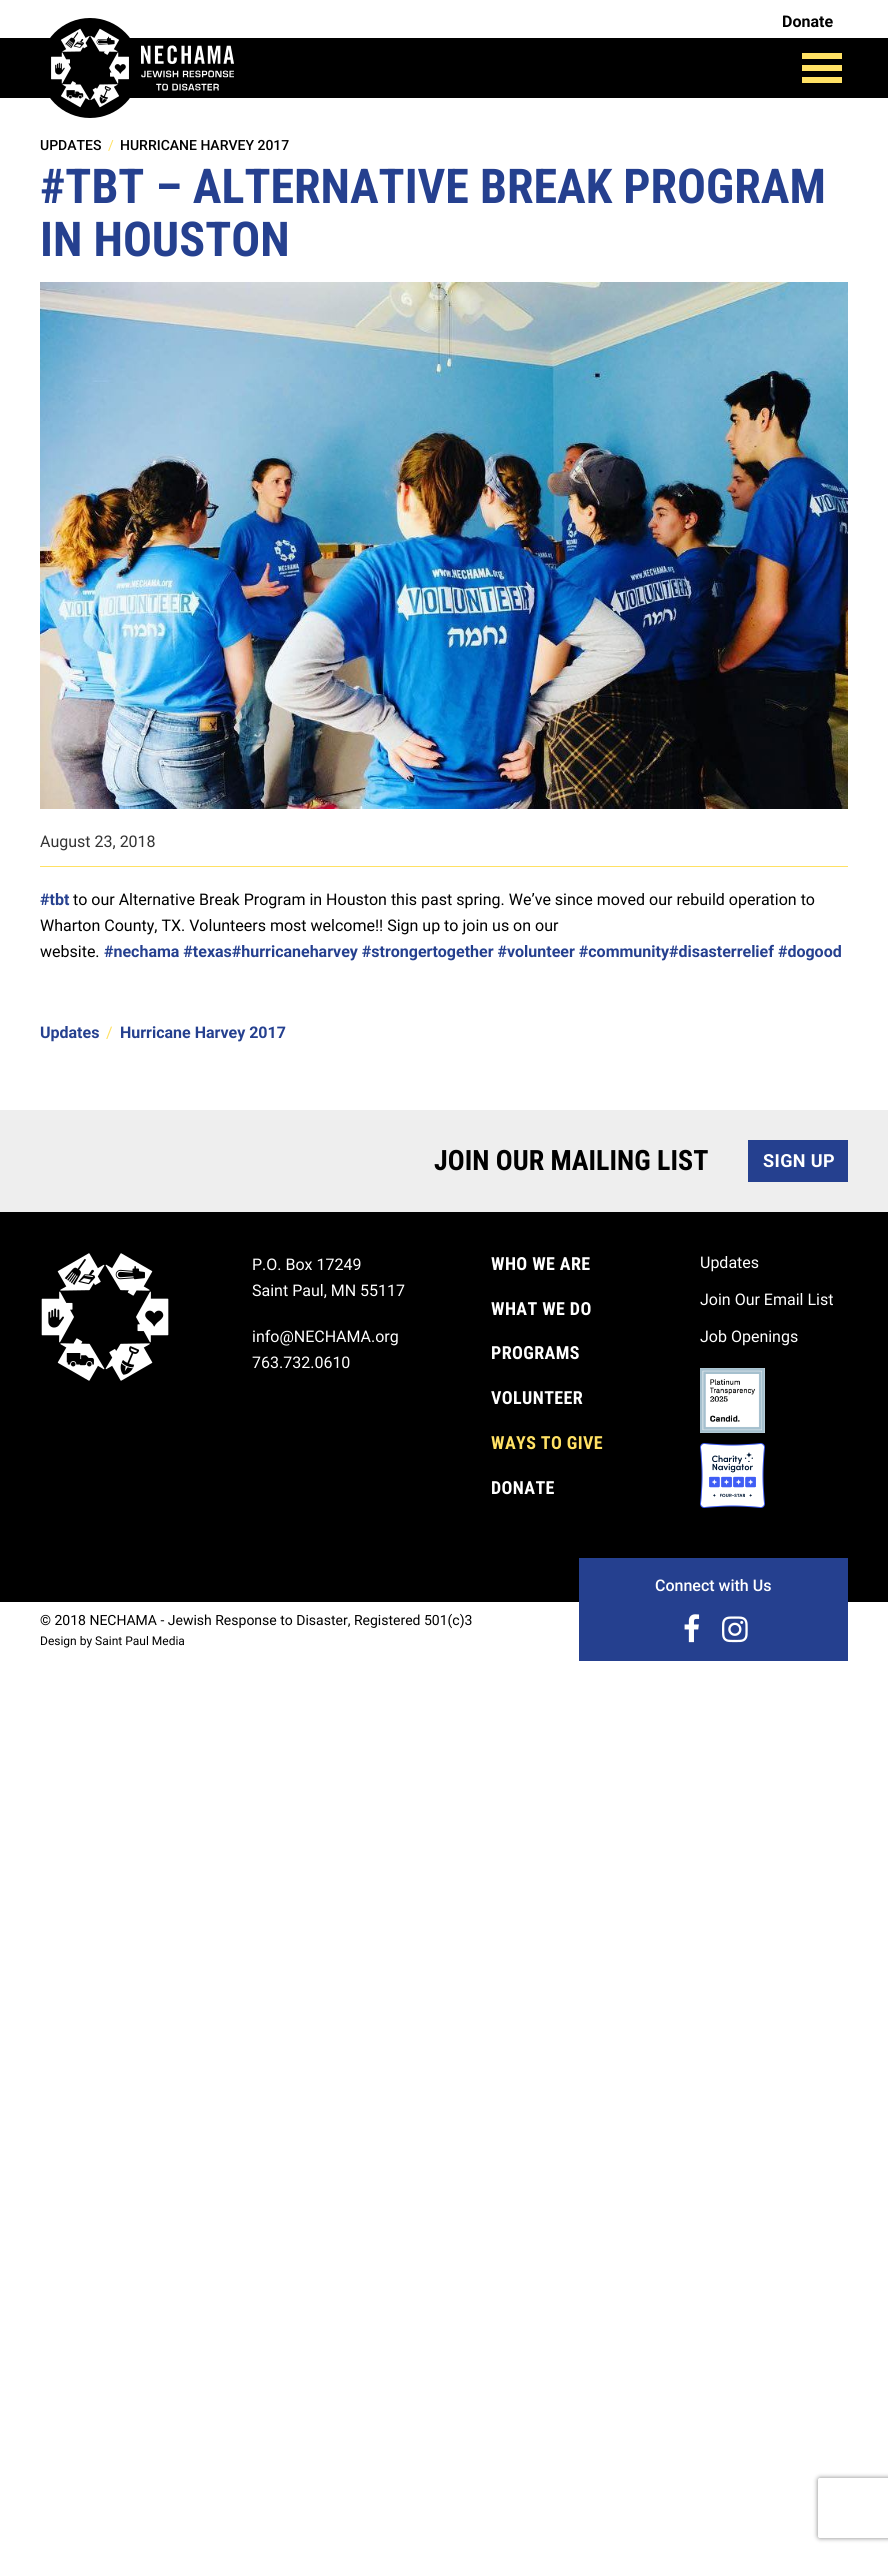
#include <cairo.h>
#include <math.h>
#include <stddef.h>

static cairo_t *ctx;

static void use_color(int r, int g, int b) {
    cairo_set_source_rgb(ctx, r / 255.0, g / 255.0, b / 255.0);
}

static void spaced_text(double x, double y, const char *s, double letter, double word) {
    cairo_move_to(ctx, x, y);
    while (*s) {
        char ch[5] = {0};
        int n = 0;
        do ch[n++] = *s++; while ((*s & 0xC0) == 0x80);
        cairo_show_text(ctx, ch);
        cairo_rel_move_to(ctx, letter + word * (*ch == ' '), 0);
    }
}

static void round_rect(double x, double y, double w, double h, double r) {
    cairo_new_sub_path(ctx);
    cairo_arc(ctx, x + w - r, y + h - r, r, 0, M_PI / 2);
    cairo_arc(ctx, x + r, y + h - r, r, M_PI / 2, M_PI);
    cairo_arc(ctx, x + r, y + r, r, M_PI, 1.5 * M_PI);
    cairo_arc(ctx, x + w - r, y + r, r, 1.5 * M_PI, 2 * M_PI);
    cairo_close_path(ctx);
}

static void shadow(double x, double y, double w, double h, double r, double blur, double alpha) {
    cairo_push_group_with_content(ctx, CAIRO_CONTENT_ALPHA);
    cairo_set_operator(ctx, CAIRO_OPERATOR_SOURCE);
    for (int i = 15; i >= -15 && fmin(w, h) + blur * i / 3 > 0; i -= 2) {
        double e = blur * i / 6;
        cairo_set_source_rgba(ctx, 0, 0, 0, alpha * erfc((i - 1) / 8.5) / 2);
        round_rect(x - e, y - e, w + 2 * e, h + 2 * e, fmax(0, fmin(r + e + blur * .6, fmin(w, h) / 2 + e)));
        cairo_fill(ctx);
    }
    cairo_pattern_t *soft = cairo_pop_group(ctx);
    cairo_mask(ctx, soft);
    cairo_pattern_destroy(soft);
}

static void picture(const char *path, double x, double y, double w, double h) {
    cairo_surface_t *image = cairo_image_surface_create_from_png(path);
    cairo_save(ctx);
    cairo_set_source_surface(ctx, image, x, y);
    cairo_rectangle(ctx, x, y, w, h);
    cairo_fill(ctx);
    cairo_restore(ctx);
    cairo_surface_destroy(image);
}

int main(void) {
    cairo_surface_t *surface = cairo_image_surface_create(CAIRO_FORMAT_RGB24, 888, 2552);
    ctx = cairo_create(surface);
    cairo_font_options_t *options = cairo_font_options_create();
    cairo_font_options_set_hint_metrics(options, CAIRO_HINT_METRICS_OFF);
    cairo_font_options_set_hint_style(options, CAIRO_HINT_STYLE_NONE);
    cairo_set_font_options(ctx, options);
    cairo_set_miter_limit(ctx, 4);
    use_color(255, 255, 255);
    cairo_paint(ctx);
    cairo_select_font_face(ctx, "Roboto", CAIRO_FONT_SLANT_NORMAL, CAIRO_FONT_WEIGHT_BOLD);
    cairo_set_font_size(ctx, 16);
    use_color(0, 0, 0);
    cairo_move_to(ctx, 782, 27);
    cairo_show_text(ctx, "Donate");
    cairo_rectangle(ctx, 0, 38, 888, 60);
    cairo_fill(ctx);
    cairo_arc(ctx, 90, 68, 50, 0, 2 * M_PI);
    cairo_fill(ctx);
    picture("img1.png", 51, 28, 78, 80);
    picture("img2.png", 141, 45, 93, 46);
    use_color(255, 225, 100);
    cairo_rectangle(ctx, 802, 53, 40, 6);
    cairo_fill(ctx);
    cairo_rectangle(ctx, 802, 65, 40, 6);
    cairo_fill(ctx);
    cairo_rectangle(ctx, 802, 77, 40, 6);
    cairo_fill(ctx);
    cairo_select_font_face(ctx, "Roboto Medium", CAIRO_FONT_SLANT_NORMAL, CAIRO_FONT_WEIGHT_NORMAL);
    cairo_set_font_size(ctx, 14);
    use_color(0, 0, 0);
    cairo_move_to(ctx, 40, 150);
    cairo_show_text(ctx, "UPDATES");
    cairo_select_font_face(ctx, "Roboto", CAIRO_FONT_SLANT_NORMAL, CAIRO_FONT_WEIGHT_NORMAL);
    use_color(255, 225, 100);
    cairo_move_to(ctx, 108, 150);
    cairo_show_text(ctx, "/");
    cairo_select_font_face(ctx, "Roboto Medium", CAIRO_FONT_SLANT_NORMAL, CAIRO_FONT_WEIGHT_NORMAL);
    use_color(0, 0, 0);
    cairo_move_to(ctx, 120, 150);
    cairo_show_text(ctx, "HURRICANE HARVEY 2017");
    cairo_select_font_face(ctx, "Roboto Condensed", CAIRO_FONT_SLANT_NORMAL, CAIRO_FONT_WEIGHT_BOLD);
    cairo_set_font_size(ctx, 48);
    use_color(37, 64, 143);
    cairo_move_to(ctx, 40, 203);
    cairo_show_text(ctx, "#TBT – ALTERNATIVE BREAK PROGRAM");
    cairo_move_to(ctx, 40, 256);
    cairo_show_text(ctx, "IN HOUSTON");
    picture("img3.png", 40, 282, 808, 527);
    use_color(255, 225, 100);
    cairo_rectangle(ctx, 40, 866, 808, 1);
    cairo_fill(ctx);
    cairo_select_font_face(ctx, "Roboto", CAIRO_FONT_SLANT_NORMAL, CAIRO_FONT_WEIGHT_NORMAL);
    cairo_set_font_size(ctx, 16);
    use_color(51, 51, 51);
    cairo_move_to(ctx, 40, 847);
    cairo_show_text(ctx, "August 23, 2018");
    cairo_select_font_face(ctx, "Roboto", CAIRO_FONT_SLANT_NORMAL, CAIRO_FONT_WEIGHT_BOLD);
    use_color(37, 64, 143);
    cairo_move_to(ctx, 40, 905);
    cairo_show_text(ctx, "#tbt");
    cairo_select_font_face(ctx, "Roboto", CAIRO_FONT_SLANT_NORMAL, CAIRO_FONT_WEIGHT_NORMAL);
    use_color(0, 0, 0);
    cairo_move_to(ctx, 73, 905);
    cairo_show_text(ctx, "to our Alternative Break Program in Houston this past spring. We’ve since moved our rebuild operation to");
    cairo_move_to(ctx, 40, 931);
    cairo_show_text(ctx, "Wharton County, TX. Volunteers most welcome!! Sign up to join us on our");
    cairo_move_to(ctx, 40, 957);
    cairo_show_text(ctx, "website.");
    cairo_select_font_face(ctx, "Roboto", CAIRO_FONT_SLANT_NORMAL, CAIRO_FONT_WEIGHT_BOLD);
    use_color(37, 64, 143);
    cairo_move_to(ctx, 104, 957);
    cairo_show_text(ctx, "#nechama #texas#hurricaneharvey #strongertogether #volunteer #community#disasterrelief #dogood");
    cairo_move_to(ctx, 40, 1038);
    cairo_show_text(ctx, "Updates");
    cairo_select_font_face(ctx, "Roboto", CAIRO_FONT_SLANT_NORMAL, CAIRO_FONT_WEIGHT_NORMAL);
    use_color(255, 225, 100);
    cairo_move_to(ctx, 106, 1038);
    cairo_show_text(ctx, "/");
    cairo_select_font_face(ctx, "Roboto", CAIRO_FONT_SLANT_NORMAL, CAIRO_FONT_WEIGHT_BOLD);
    use_color(37, 64, 143);
    cairo_move_to(ctx, 120, 1038);
    cairo_show_text(ctx, "Hurricane Harvey 2017");
    use_color(238, 238, 238);
    cairo_rectangle(ctx, 0, 1110, 888, 102);
    cairo_fill(ctx);
    cairo_select_font_face(ctx, "Roboto Condensed", CAIRO_FONT_SLANT_NORMAL, CAIRO_FONT_WEIGHT_BOLD);
    cairo_set_font_size(ctx, 28);
    use_color(0, 0, 0);
    cairo_move_to(ctx, 434, 1170);
    cairo_show_text(ctx, "JOIN OUR MAILING LIST");
    use_color(37, 64, 143);
    cairo_rectangle(ctx, 748, 1140, 100, 42);
    cairo_fill(ctx);
    cairo_select_font_face(ctx, "Roboto", CAIRO_FONT_SLANT_NORMAL, CAIRO_FONT_WEIGHT_BOLD);
    cairo_set_font_size(ctx, 18);
    use_color(255, 255, 255);
    spaced_text(763, 1167, "SIGN UP", 0.4, 0);
    use_color(0, 0, 0);
    cairo_rectangle(ctx, 0, 1212, 888, 390);
    cairo_fill(ctx);
    picture("img4.png", 41, 1253, 128, 128);
    cairo_select_font_face(ctx, "Roboto", CAIRO_FONT_SLANT_NORMAL, CAIRO_FONT_WEIGHT_NORMAL);
    cairo_set_font_size(ctx, 16);
    use_color(255, 255, 255);
    cairo_move_to(ctx, 252, 1270);
    cairo_show_text(ctx, "P.O. Box 17249");
    cairo_move_to(ctx, 252, 1296);
    cairo_show_text(ctx, "Saint Paul, MN 55117");
    cairo_move_to(ctx, 252, 1342);
    cairo_show_text(ctx, "info@NECHAMA.org");
    cairo_move_to(ctx, 252, 1368);
    cairo_show_text(ctx, "763.732.0610");
    cairo_select_font_face(ctx, "Roboto Condensed", CAIRO_FONT_SLANT_NORMAL, CAIRO_FONT_WEIGHT_BOLD);
    cairo_set_font_size(ctx, 18);
    spaced_text(491, 1270, "WHO WE ARE", 0.4, 0);
    spaced_text(491, 1315, "WHAT WE DO", 0.4, 0);
    spaced_text(491, 1359, "PROGRAMS", 0.4, 0);
    spaced_text(491, 1404, "VOLUNTEER", 0.4, 0);
    use_color(255, 225, 100);
    spaced_text(491, 1449, "WAYS TO GIVE", 0.4, 0);
    use_color(255, 255, 255);
    spaced_text(491, 1494, "DONATE", 0.4, 0);
    cairo_select_font_face(ctx, "Roboto", CAIRO_FONT_SLANT_NORMAL, CAIRO_FONT_WEIGHT_NORMAL);
    cairo_set_font_size(ctx, 16);
    cairo_move_to(ctx, 700, 1268);
    cairo_show_text(ctx, "Updates");
    cairo_move_to(ctx, 700, 1305);
    cairo_show_text(ctx, "Join Our Email List");
    cairo_move_to(ctx, 700, 1342);
    cairo_show_text(ctx, "Job Openings");
    picture("img5.png", 700, 1368, 65, 65);
    picture("img6.png", 700, 1443, 65, 65);
    use_color(37, 64, 143);
    cairo_rectangle(ctx, 579, 1558, 269, 103);
    cairo_fill(ctx);
    cairo_select_font_face(ctx, "Roboto Medium", CAIRO_FONT_SLANT_NORMAL, CAIRO_FONT_WEIGHT_NORMAL);
    use_color(255, 255, 255);
    cairo_move_to(ctx, 655, 1591);
    cairo_show_text(ctx, "Connect with Us");
    picture("img7.png", 684, 1614, 16, 29);
    picture("img8.png", 722, 1616, 26, 27);
    cairo_select_font_face(ctx, "Roboto", CAIRO_FONT_SLANT_NORMAL, CAIRO_FONT_WEIGHT_NORMAL);
    cairo_set_font_size(ctx, 14);
    use_color(0, 0, 0);
    cairo_move_to(ctx, 40, 1625);
    cairo_show_text(ctx, "© 2018 NECHAMA - Jewish Response to Disaster, Registered 501(c)3");
    cairo_set_font_size(ctx, 12);
    cairo_move_to(ctx, 40, 1645);
    cairo_show_text(ctx, "Design by Saint Paul Media");
    cairo_save(ctx);
    cairo_set_fill_rule(ctx, CAIRO_FILL_RULE_EVEN_ODD);
    cairo_new_path(ctx);
    cairo_move_to(ctx, 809, 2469);
    cairo_line_to(ctx, 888, 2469);
    cairo_line_to(ctx, 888, 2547);
    cairo_line_to(ctx, 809, 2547);
    cairo_close_path(ctx);
    cairo_move_to(ctx, 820, 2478);
    cairo_line_to(ctx, 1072, 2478);
    cairo_curve_to(ctx, 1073, 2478, 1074, 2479, 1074, 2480);
    cairo_line_to(ctx, 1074, 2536);
    cairo_curve_to(ctx, 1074, 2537, 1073, 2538, 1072, 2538);
    cairo_line_to(ctx, 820, 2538);
    cairo_curve_to(ctx, 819, 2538, 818, 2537, 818, 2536);
    cairo_line_to(ctx, 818, 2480);
    cairo_curve_to(ctx, 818, 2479, 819, 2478, 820, 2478);
    cairo_close_path(ctx);
    cairo_clip(ctx);
    use_color(128, 128, 128);
    shadow(818, 2478, 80, 60, 2, 2.5, 1);
    cairo_restore(ctx);
    cairo_surface_write_to_png(surface, "result.png");
    cairo_font_options_destroy(options);
    cairo_destroy(ctx);
    cairo_surface_destroy(surface);
    return 0;
}
